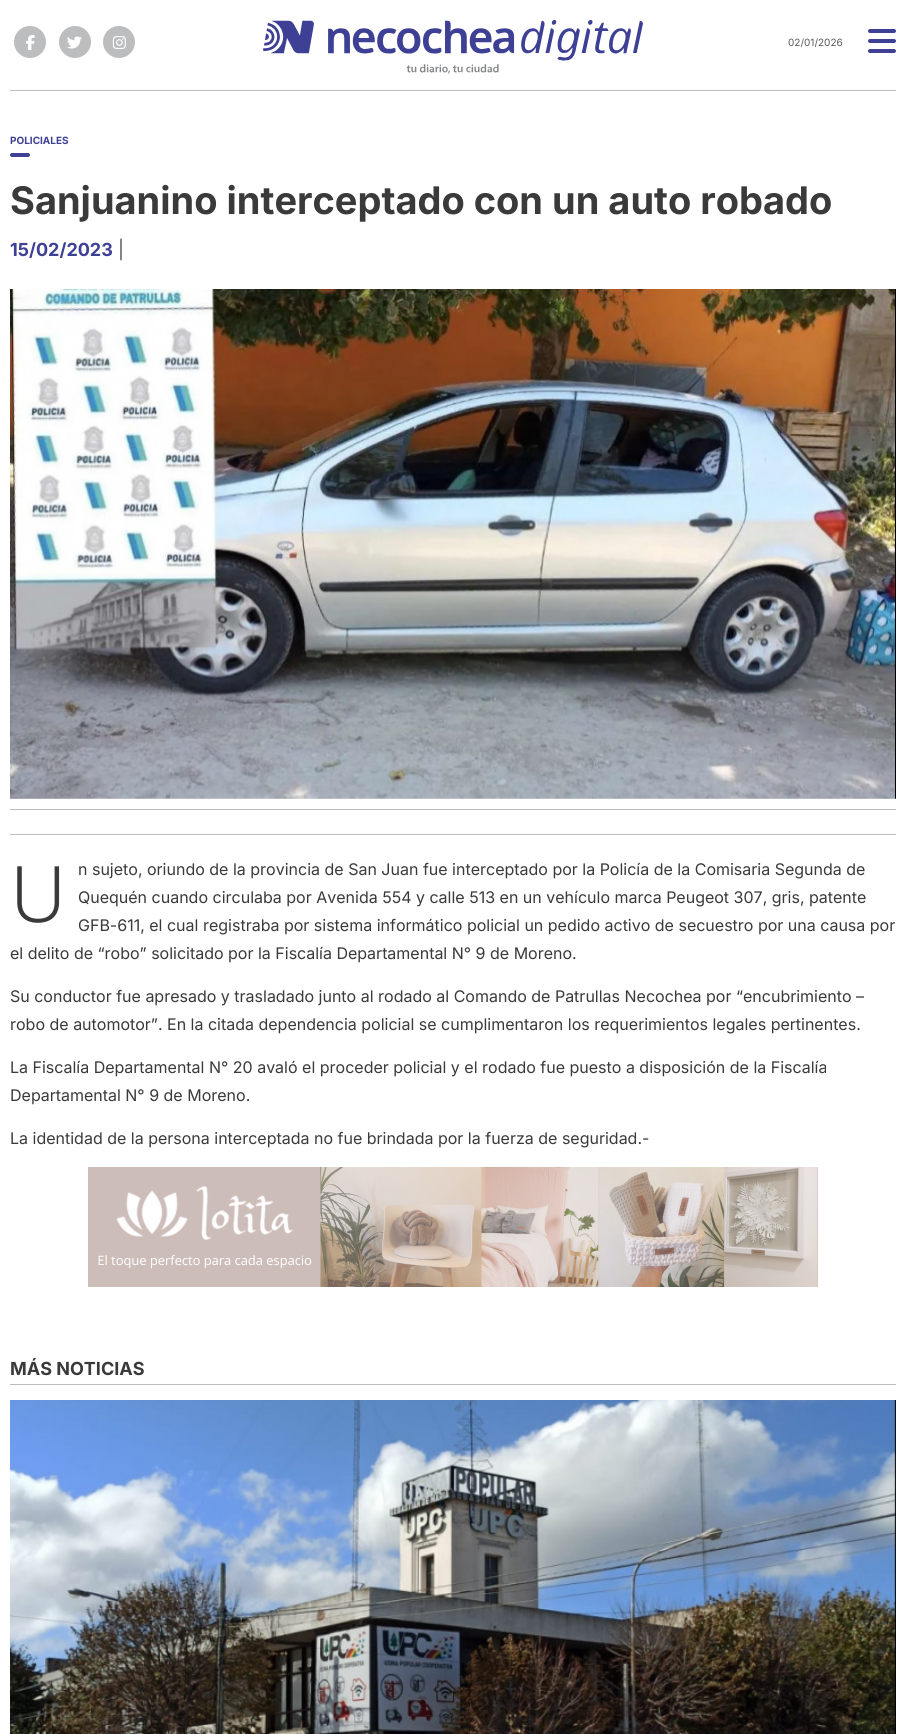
#include <cairo.h>
#include <math.h>
#include <stddef.h>

static cairo_t *ctx;

static void use_color(int r, int g, int b) {
    cairo_set_source_rgb(ctx, r / 255.0, g / 255.0, b / 255.0);
}

static void round_rect(double x, double y, double w, double h, double r) {
    cairo_new_sub_path(ctx);
    cairo_arc(ctx, x + w - r, y + h - r, r, 0, M_PI / 2);
    cairo_arc(ctx, x + r, y + h - r, r, M_PI / 2, M_PI);
    cairo_arc(ctx, x + r, y + r, r, M_PI, 1.5 * M_PI);
    cairo_arc(ctx, x + w - r, y + r, r, 1.5 * M_PI, 2 * M_PI);
    cairo_close_path(ctx);
}

static void picture(const char *path, double x, double y, double w, double h) {
    cairo_surface_t *image = cairo_image_surface_create_from_png(path);
    cairo_save(ctx);
    cairo_set_source_surface(ctx, image, x, y);
    cairo_rectangle(ctx, x, y, w, h);
    cairo_fill(ctx);
    cairo_restore(ctx);
    cairo_surface_destroy(image);
}

int main(void) {
    cairo_surface_t *surface = cairo_image_surface_create(CAIRO_FORMAT_RGB24, 906, 1734);
    ctx = cairo_create(surface);
    cairo_font_options_t *options = cairo_font_options_create();
    cairo_font_options_set_hint_metrics(options, CAIRO_HINT_METRICS_OFF);
    cairo_font_options_set_hint_style(options, CAIRO_HINT_STYLE_NONE);
    cairo_set_font_options(ctx, options);
    cairo_set_miter_limit(ctx, 4);
    use_color(255, 255, 255);
    cairo_paint(ctx);
    picture("img1.png", 14, 26, 32, 32);
    picture("img2.png", 26, 35, 9, 15);
    picture("img1.png", 59, 26, 32, 32);
    picture("img3.png", 67, 36, 15, 13);
    picture("img1.png", 103, 26, 32, 32);
    picture("img4.png", 112, 36, 14, 13);
    picture("img5.png", 263, 20, 380, 54);
    cairo_select_font_face(ctx, "Inter", CAIRO_FONT_SLANT_NORMAL, CAIRO_FONT_WEIGHT_NORMAL);
    cairo_set_font_size(ctx, 10);
    use_color(88, 89, 91);
    cairo_move_to(ctx, 788, 46);
    cairo_show_text(ctx, "02/01/2026");
    picture("img6.png", 868, 29, 28, 24);
    use_color(187, 189, 191);
    cairo_rectangle(ctx, 10, 90, 886, 1);
    cairo_fill(ctx);
    cairo_select_font_face(ctx, "Inter", CAIRO_FONT_SLANT_NORMAL, CAIRO_FONT_WEIGHT_BOLD);
    use_color(62, 64, 149);
    cairo_move_to(ctx, 10, 144);
    cairo_show_text(ctx, "POLICIALES");
    round_rect(10, 153, 20, 4, 2);
    cairo_fill(ctx);
    cairo_set_font_size(ctx, 38);
    use_color(58, 58, 58);
    cairo_move_to(ctx, 10, 214);
    cairo_show_text(ctx, "Sanjuanino interceptado con un auto robado");
    cairo_set_font_size(ctx, 18);
    use_color(62, 64, 149);
    cairo_move_to(ctx, 10, 256);
    cairo_show_text(ctx, "15/02/2023");
    cairo_select_font_face(ctx, "Inter", CAIRO_FONT_SLANT_NORMAL, CAIRO_FONT_WEIGHT_NORMAL);
    use_color(81, 81, 81);
    cairo_move_to(ctx, 118, 256);
    cairo_show_text(ctx, "|");
    picture("img7.png", 10, 289, 886, 510);
    use_color(187, 189, 191);
    cairo_rectangle(ctx, 10, 809, 886, 1);
    cairo_fill(ctx);
    cairo_rectangle(ctx, 10, 834, 886, 1);
    cairo_fill(ctx);
    cairo_select_font_face(ctx, "Noto Sans Light", CAIRO_FONT_SLANT_NORMAL, CAIRO_FONT_WEIGHT_NORMAL);
    cairo_set_font_size(ctx, 78);
    use_color(58, 58, 58);
    cairo_move_to(ctx, 10, 922);
    cairo_show_text(ctx, "U");
    cairo_select_font_face(ctx, "Inter", CAIRO_FONT_SLANT_NORMAL, CAIRO_FONT_WEIGHT_NORMAL);
    cairo_set_font_size(ctx, 16);
    cairo_move_to(ctx, 78, 875);
    cairo_show_text(ctx, "n sujeto, oriundo de la provincia de San Juan fue interceptado por la Policía de la Comisaria Segunda de");
    cairo_move_to(ctx, 78, 903);
    cairo_show_text(ctx, "Quequén cuando circulaba por Avenida 554 y calle 513 en un vehículo marca Peugeot 307, gris, patente");
    cairo_move_to(ctx, 78, 931);
    cairo_show_text(ctx, "GFB-611, el cual registraba por sistema informático policial un pedido activo de secuestro por una causa por");
    cairo_move_to(ctx, 10, 959);
    cairo_show_text(ctx, "el delito de “robo” solicitado por la Fiscalía Departamental N° 9 de Moreno.");
    cairo_move_to(ctx, 10, 1002);
    cairo_show_text(ctx, "Su conductor fue apresado y trasladado junto al rodado al Comando de Patrullas Necochea por “encubrimiento –");
    cairo_move_to(ctx, 10, 1030);
    cairo_show_text(ctx, "robo de automotor”. En la citada dependencia policial se cumplimentaron los requerimientos legales pertinentes.");
    cairo_move_to(ctx, 10, 1073);
    cairo_show_text(ctx, "La Fiscalía Departamental N° 20 avaló el proceder policial y el rodado fue puesto a disposición de la Fiscalía");
    cairo_move_to(ctx, 10, 1101);
    cairo_show_text(ctx, "Departamental N° 9 de Moreno.");
    cairo_move_to(ctx, 10, 1144);
    cairo_show_text(ctx, "La identidad de la persona interceptada no fue brindada por la fuerza de seguridad.-");
    picture("img8.png", 88, 1167, 730, 120);
    use_color(187, 189, 191);
    cairo_rectangle(ctx, 10, 1384, 886, 1);
    cairo_fill(ctx);
    cairo_select_font_face(ctx, "Inter", CAIRO_FONT_SLANT_NORMAL, CAIRO_FONT_WEIGHT_BOLD);
    cairo_set_font_size(ctx, 18);
    use_color(58, 58, 58);
    cairo_move_to(ctx, 10, 1375);
    cairo_show_text(ctx, "MÁS NOTICIAS");
    picture("img9.png", 10, 1400, 886, 334);
    cairo_surface_write_to_png(surface, "result.png");
    cairo_font_options_destroy(options);
    cairo_destroy(ctx);
    cairo_surface_destroy(surface);
    return 0;
}
